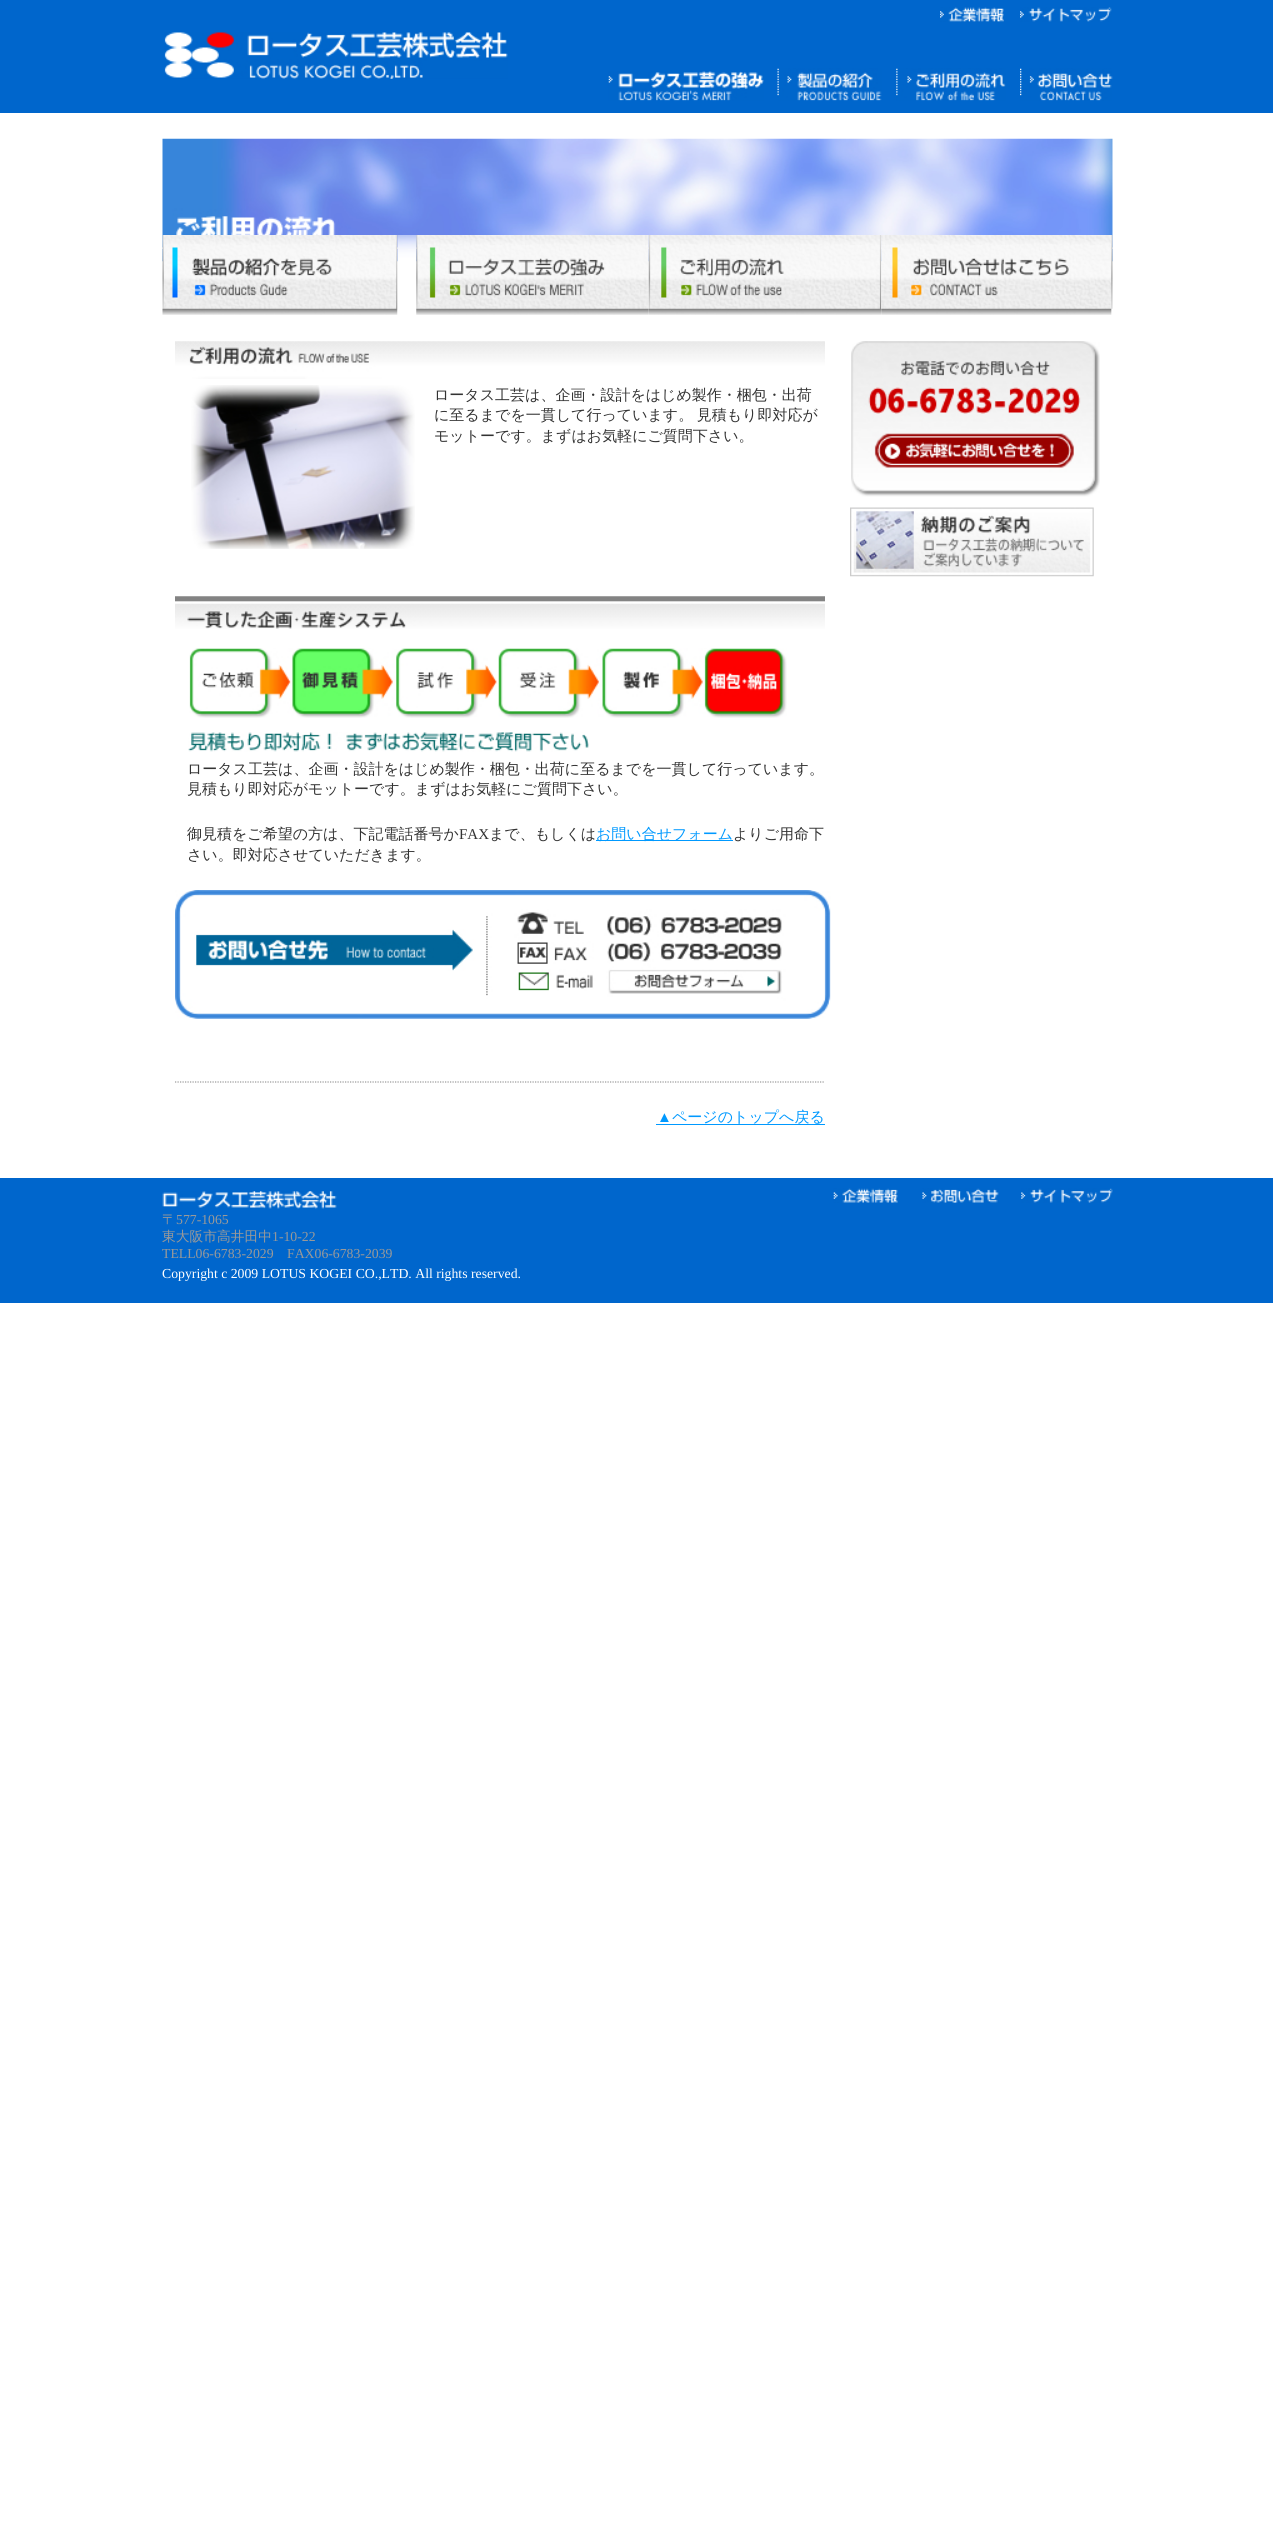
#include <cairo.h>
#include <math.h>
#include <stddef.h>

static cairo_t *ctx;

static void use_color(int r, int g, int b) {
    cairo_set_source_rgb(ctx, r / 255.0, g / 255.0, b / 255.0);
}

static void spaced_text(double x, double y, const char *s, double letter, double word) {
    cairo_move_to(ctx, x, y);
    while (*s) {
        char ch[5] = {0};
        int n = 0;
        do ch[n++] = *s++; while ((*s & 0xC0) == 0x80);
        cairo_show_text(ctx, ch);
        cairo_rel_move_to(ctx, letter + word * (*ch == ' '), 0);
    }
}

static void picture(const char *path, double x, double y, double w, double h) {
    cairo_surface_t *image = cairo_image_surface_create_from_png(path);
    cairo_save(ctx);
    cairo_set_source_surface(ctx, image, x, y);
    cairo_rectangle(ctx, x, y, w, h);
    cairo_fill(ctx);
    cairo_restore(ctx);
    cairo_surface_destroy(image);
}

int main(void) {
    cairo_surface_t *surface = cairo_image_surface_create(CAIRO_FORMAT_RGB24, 1273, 2521);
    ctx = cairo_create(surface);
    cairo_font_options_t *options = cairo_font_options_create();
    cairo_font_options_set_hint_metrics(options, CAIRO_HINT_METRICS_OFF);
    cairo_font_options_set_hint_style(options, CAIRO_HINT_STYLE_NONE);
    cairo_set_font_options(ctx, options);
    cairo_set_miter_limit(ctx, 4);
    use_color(255, 255, 255);
    cairo_paint(ctx);
    use_color(0, 102, 204);
    cairo_rectangle(ctx, 0, 0, 1273, 113);
    cairo_fill(ctx);
    picture("img1.png", 940, 7, 64, 15);
    picture("img2.png", 1020, 7, 92, 15);
    picture("img3.png", 164, 32, 344, 47);
    picture("img4.png", 608, 71, 156, 30);
    picture("img5.png", 777, 68, 105, 33);
    picture("img6.png", 896, 68, 110, 33);
    picture("img7.png", 1020, 68, 93, 33);
    picture("img8.png", 162, 138, 951, 124);
    picture("img9.png", 162, 235, 236, 80);
    picture("img10.png", 397, 235, 20, 80);
    picture("img11.png", 416, 235, 233, 80);
    picture("img12.png", 648, 235, 234, 80);
    picture("img13.png", 881, 235, 232, 80);
    picture("img14.png", 175, 341, 650, 38);
    picture("img15.png", 191, 385, 224, 164);
    cairo_select_font_face(ctx, "WenQuanYi Zen Hei Medium", CAIRO_FONT_SLANT_NORMAL, CAIRO_FONT_WEIGHT_NORMAL);
    cairo_set_font_size(ctx, 15);
    use_color(51, 51, 51);
    cairo_move_to(ctx, 434, 400);
    cairo_show_text(ctx, "ロータス工芸は、企画・設計をはじめ製作・梱包・出荷");
    spaced_text(434, 420, "に至るまでを一貫して行っています。 見積もり即対応が", 0, -1);
    cairo_move_to(ctx, 434, 441);
    cairo_show_text(ctx, "モットーです。まずはお気軽にご質問下さい。");
    picture("img16.png", 175, 596, 650, 33);
    picture("img17.png", 189, 648, 598, 70);
    picture("img18.png", 188, 732, 401, 20);
    cairo_move_to(ctx, 187, 774);
    cairo_show_text(ctx, "ロータス工芸は、企画・設計をはじめ製作・梱包・出荷に至るまでを一貫して行っています。");
    cairo_move_to(ctx, 187, 794);
    cairo_show_text(ctx, "見積もり即対応がモットーです。まずはお気軽にご質問下さい。");
    cairo_move_to(ctx, 187, 839);
    cairo_show_text(ctx, "御見積をご希望の方は、下記電話番号か");
    cairo_select_font_face(ctx, "Liberation Serif", CAIRO_FONT_SLANT_NORMAL, CAIRO_FONT_WEIGHT_NORMAL);
    cairo_move_to(ctx, 459, 839);
    cairo_show_text(ctx, "FAX");
    cairo_select_font_face(ctx, "WenQuanYi Zen Hei Medium", CAIRO_FONT_SLANT_NORMAL, CAIRO_FONT_WEIGHT_NORMAL);
    cairo_move_to(ctx, 489, 839);
    cairo_show_text(ctx, "まで、もしくは");
    use_color(0, 153, 255);
    cairo_rectangle(ctx, 596, 840, 137, 1);
    cairo_fill(ctx);
    cairo_move_to(ctx, 596, 839);
    cairo_show_text(ctx, "お問い合せフォーム");
    use_color(51, 51, 51);
    cairo_move_to(ctx, 733, 839);
    cairo_show_text(ctx, "よりご用命下");
    cairo_move_to(ctx, 187, 860);
    cairo_show_text(ctx, "さい。即対応させていただきます。");
    picture("img19.png", 175, 890, 656, 129);
    cairo_new_path(ctx);
    cairo_move_to(ctx, 175, 1082);
    cairo_line_to(ctx, 825, 1082);
    use_color(153, 153, 153);
    cairo_set_line_width(ctx, 1.2);
    cairo_set_dash(ctx, (double[]){1.25, 1.25}, 2, 0);
    cairo_stroke(ctx);
    cairo_select_font_face(ctx, "Liberation Serif", CAIRO_FONT_SLANT_NORMAL, CAIRO_FONT_WEIGHT_NORMAL);
    use_color(0, 153, 255);
    cairo_move_to(ctx, 657, 1122);
    cairo_show_text(ctx, "▲");
    cairo_rectangle(ctx, 656, 1124, 169, 1);
    cairo_fill(ctx);
    cairo_select_font_face(ctx, "WenQuanYi Zen Hei Medium", CAIRO_FONT_SLANT_NORMAL, CAIRO_FONT_WEIGHT_NORMAL);
    cairo_move_to(ctx, 672, 1122);
    cairo_show_text(ctx, "ページのトップへ戻る");
    picture("img20.png", 851, 341, 249, 156);
    picture("img21.png", 850, 507, 244, 70);
    use_color(0, 102, 204);
    cairo_rectangle(ctx, 0, 1178, 1273, 125);
    cairo_fill(ctx);
    picture("img22.png", 833, 1188, 65, 15);
    picture("img23.png", 922, 1188, 77, 15);
    picture("img24.png", 1021, 1188, 92, 15);
    picture("img25.png", 162, 1191, 175, 18);
    cairo_set_font_size(ctx, 13.75);
    use_color(153, 153, 153);
    cairo_move_to(ctx, 162, 1224);
    cairo_show_text(ctx, "〒");
    cairo_select_font_face(ctx, "Liberation Serif", CAIRO_FONT_SLANT_NORMAL, CAIRO_FONT_WEIGHT_NORMAL);
    cairo_move_to(ctx, 176, 1224);
    cairo_show_text(ctx, "577-1065");
    cairo_select_font_face(ctx, "WenQuanYi Zen Hei Medium", CAIRO_FONT_SLANT_NORMAL, CAIRO_FONT_WEIGHT_NORMAL);
    cairo_move_to(ctx, 162, 1241);
    cairo_show_text(ctx, "東大阪市高井田中");
    cairo_select_font_face(ctx, "Liberation Serif", CAIRO_FONT_SLANT_NORMAL, CAIRO_FONT_WEIGHT_NORMAL);
    cairo_move_to(ctx, 272, 1241);
    cairo_show_text(ctx, "1-10-22");
    cairo_move_to(ctx, 162, 1258);
    cairo_show_text(ctx, "TELL06-6783-2029");
    cairo_move_to(ctx, 287, 1258);
    cairo_show_text(ctx, "FAX06-6783-2039");
    use_color(255, 255, 255);
    cairo_move_to(ctx, 162, 1278);
    cairo_show_text(ctx, "Copyright c 2009 LOTUS KOGEI CO.,LTD. All rights reserved.");
    cairo_surface_write_to_png(surface, "result.png");
    cairo_font_options_destroy(options);
    cairo_destroy(ctx);
    cairo_surface_destroy(surface);
    return 0;
}
